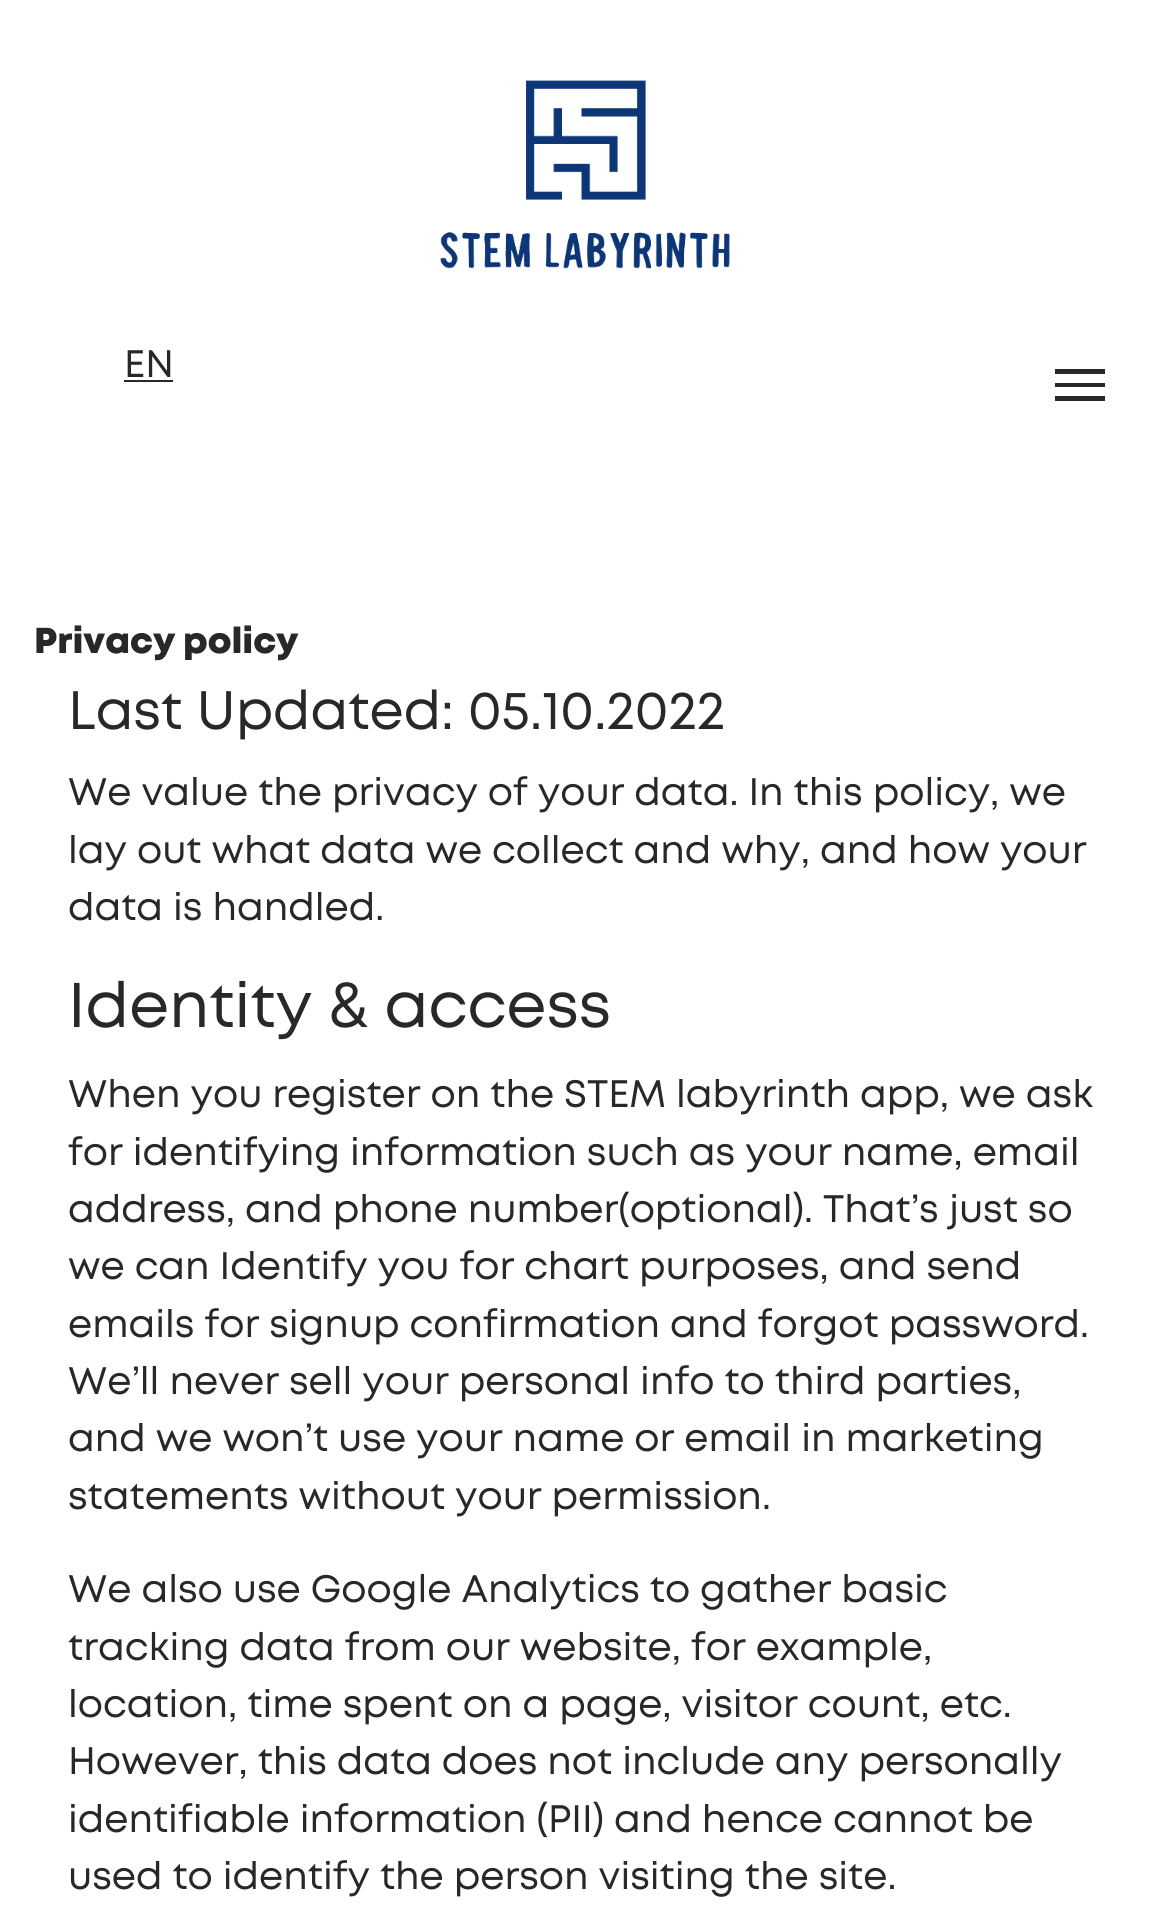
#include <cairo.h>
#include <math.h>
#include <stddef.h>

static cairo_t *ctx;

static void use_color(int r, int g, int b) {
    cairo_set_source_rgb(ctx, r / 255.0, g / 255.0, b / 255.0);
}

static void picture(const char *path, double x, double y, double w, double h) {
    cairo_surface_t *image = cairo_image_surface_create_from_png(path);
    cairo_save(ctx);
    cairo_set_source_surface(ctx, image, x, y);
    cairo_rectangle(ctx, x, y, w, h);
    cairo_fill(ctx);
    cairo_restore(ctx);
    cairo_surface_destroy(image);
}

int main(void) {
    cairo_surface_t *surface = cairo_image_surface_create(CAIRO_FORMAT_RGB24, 1170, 1916);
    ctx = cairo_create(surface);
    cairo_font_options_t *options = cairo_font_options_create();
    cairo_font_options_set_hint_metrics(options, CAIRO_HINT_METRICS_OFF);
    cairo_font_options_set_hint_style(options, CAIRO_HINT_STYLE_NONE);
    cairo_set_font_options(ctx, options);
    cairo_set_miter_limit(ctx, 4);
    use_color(255, 255, 255);
    cairo_paint(ctx);
    picture("img1.png", 440, 80, 290, 189);
    cairo_select_font_face(ctx, "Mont", CAIRO_FONT_SLANT_NORMAL, CAIRO_FONT_WEIGHT_NORMAL);
    cairo_set_font_size(ctx, 38.25);
    use_color(40, 40, 40);
    cairo_move_to(ctx, 124, 377);
    cairo_show_text(ctx, "EN");
    cairo_rectangle(ctx, 124, 380, 49, 2);
    cairo_fill(ctx);
    cairo_rectangle(ctx, 1055, 369, 50, 5);
    cairo_fill(ctx);
    cairo_rectangle(ctx, 1055, 383, 50, 4);
    cairo_fill(ctx);
    cairo_rectangle(ctx, 1055, 396, 50, 5);
    cairo_fill(ctx);
    cairo_select_font_face(ctx, "Mont Black", CAIRO_FONT_SLANT_NORMAL, CAIRO_FONT_WEIGHT_NORMAL);
    cairo_set_font_size(ctx, 36);
    cairo_move_to(ctx, 34, 653);
    cairo_show_text(ctx, "Privacy policy");
    cairo_select_font_face(ctx, "Mont", CAIRO_FONT_SLANT_NORMAL, CAIRO_FONT_WEIGHT_NORMAL);
    cairo_set_font_size(ctx, 54);
    cairo_move_to(ctx, 68, 729);
    cairo_show_text(ctx, "Last Updated: 05.10.2022");
    cairo_set_font_size(ctx, 38.25);
    cairo_move_to(ctx, 68, 805);
    cairo_show_text(ctx, "We value the privacy of your data. In this policy, we");
    cairo_move_to(ctx, 68, 863);
    cairo_show_text(ctx, "lay out what data we collect and why, and how your");
    cairo_move_to(ctx, 68, 920);
    cairo_show_text(ctx, "data is handled.");
    cairo_set_font_size(ctx, 63);
    cairo_move_to(ctx, 68, 1027);
    cairo_show_text(ctx, "Identity & access");
    cairo_set_font_size(ctx, 38.25);
    cairo_move_to(ctx, 68, 1107);
    cairo_show_text(ctx, "When you register on the STEM labyrinth app, we ask");
    cairo_move_to(ctx, 68, 1165);
    cairo_show_text(ctx, "for identifying information such as your name, email");
    cairo_move_to(ctx, 68, 1222);
    cairo_show_text(ctx, "address, and phone number(optional). That’s just so");
    cairo_move_to(ctx, 68, 1279);
    cairo_show_text(ctx, "we can Identify you for chart purposes, and send");
    cairo_move_to(ctx, 68, 1337);
    cairo_show_text(ctx, "emails for signup confirmation and forgot password.");
    cairo_move_to(ctx, 68, 1394);
    cairo_show_text(ctx, "We’ll never sell your personal info to third parties,");
    cairo_move_to(ctx, 68, 1451);
    cairo_show_text(ctx, "and we won’t use your name or email in marketing");
    cairo_move_to(ctx, 68, 1509);
    cairo_show_text(ctx, "statements without your permission.");
    cairo_move_to(ctx, 68, 1602);
    cairo_show_text(ctx, "We also use Google Analytics to gather basic");
    cairo_move_to(ctx, 68, 1660);
    cairo_show_text(ctx, "tracking data from our website, for example,");
    cairo_move_to(ctx, 68, 1717);
    cairo_show_text(ctx, "location, time spent on a page, visitor count, etc.");
    cairo_move_to(ctx, 68, 1774);
    cairo_show_text(ctx, "However, this data does not include any personally");
    cairo_move_to(ctx, 68, 1832);
    cairo_show_text(ctx, "identifiable information (PII) and hence cannot be");
    cairo_move_to(ctx, 68, 1889);
    cairo_show_text(ctx, "used to identify the person visiting the site.");
    cairo_surface_write_to_png(surface, "result.png");
    cairo_font_options_destroy(options);
    cairo_destroy(ctx);
    cairo_surface_destroy(surface);
    return 0;
}
